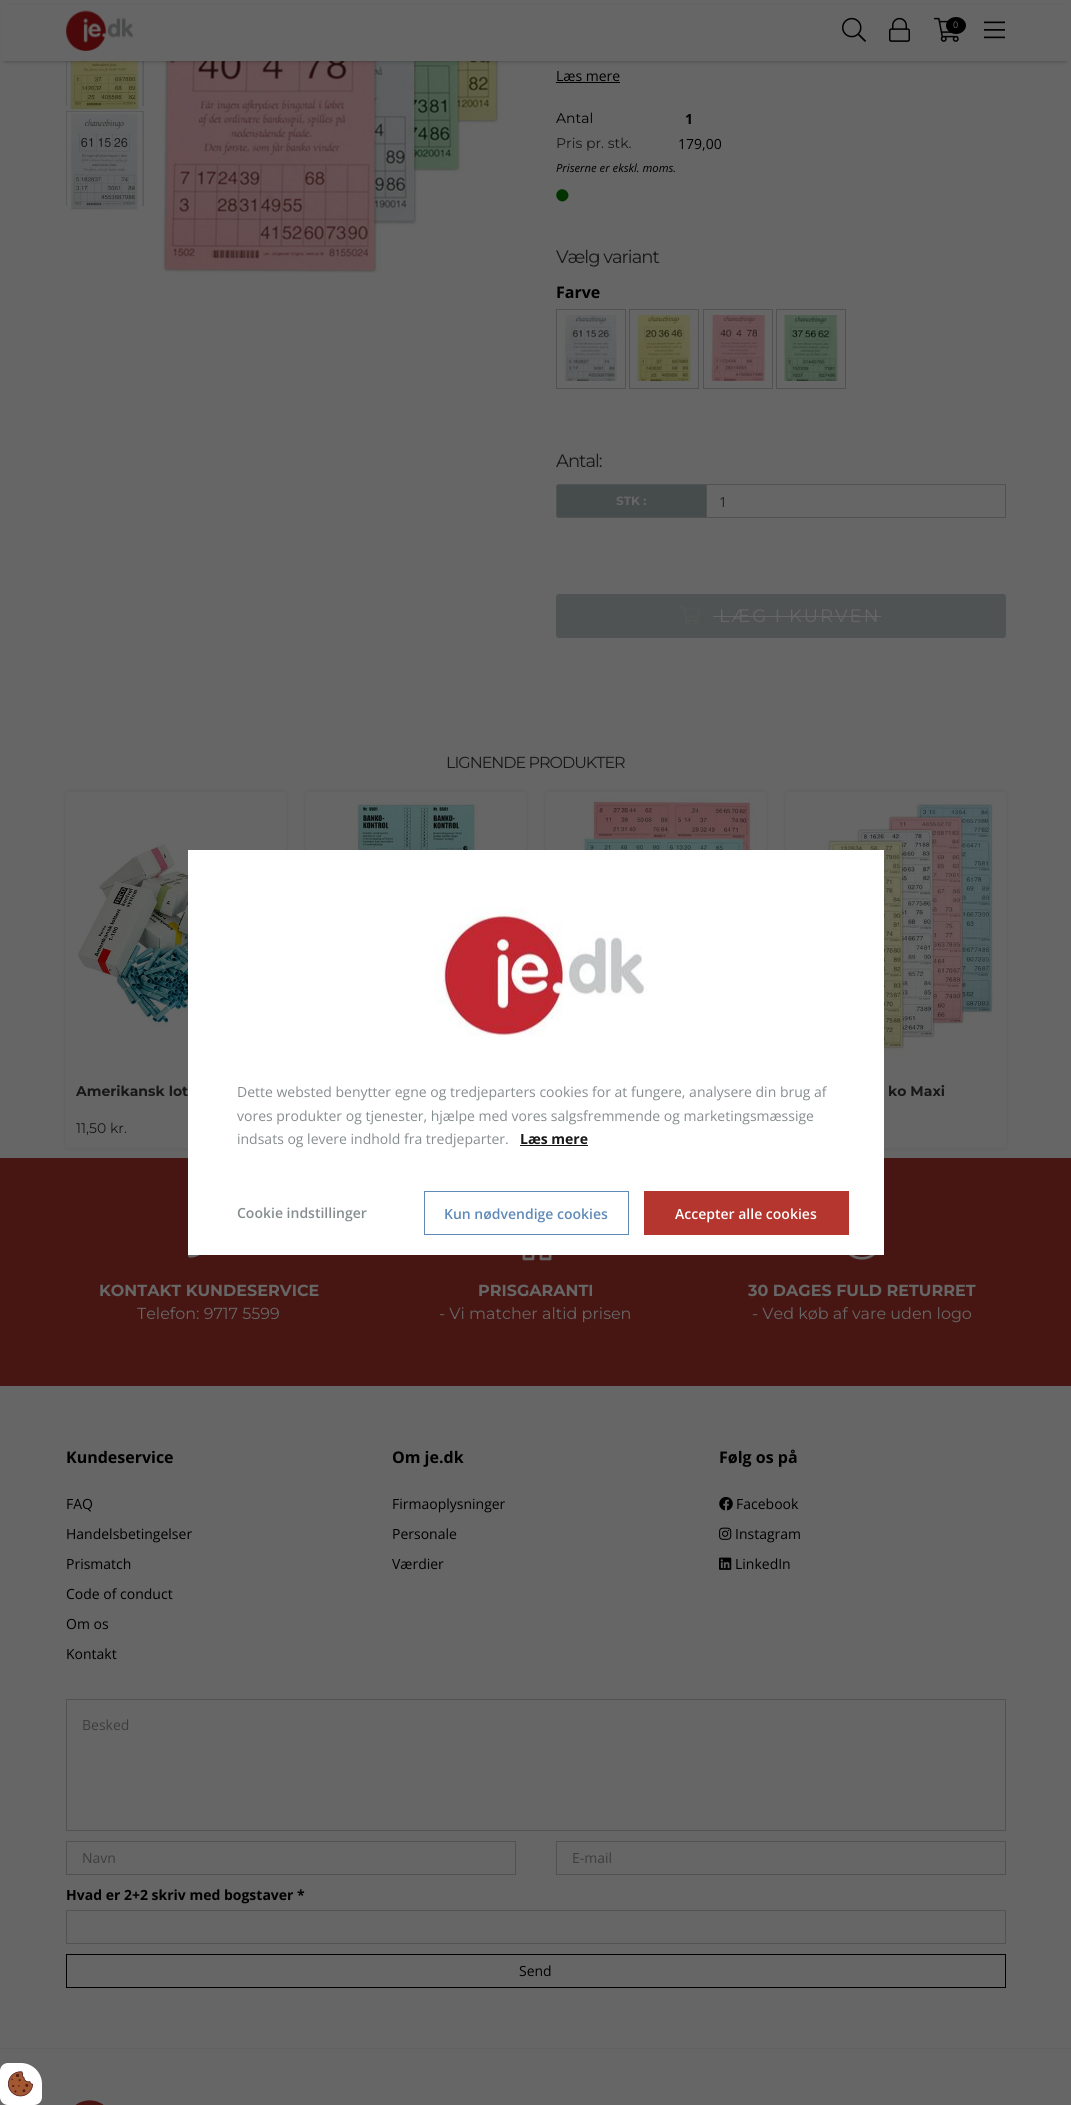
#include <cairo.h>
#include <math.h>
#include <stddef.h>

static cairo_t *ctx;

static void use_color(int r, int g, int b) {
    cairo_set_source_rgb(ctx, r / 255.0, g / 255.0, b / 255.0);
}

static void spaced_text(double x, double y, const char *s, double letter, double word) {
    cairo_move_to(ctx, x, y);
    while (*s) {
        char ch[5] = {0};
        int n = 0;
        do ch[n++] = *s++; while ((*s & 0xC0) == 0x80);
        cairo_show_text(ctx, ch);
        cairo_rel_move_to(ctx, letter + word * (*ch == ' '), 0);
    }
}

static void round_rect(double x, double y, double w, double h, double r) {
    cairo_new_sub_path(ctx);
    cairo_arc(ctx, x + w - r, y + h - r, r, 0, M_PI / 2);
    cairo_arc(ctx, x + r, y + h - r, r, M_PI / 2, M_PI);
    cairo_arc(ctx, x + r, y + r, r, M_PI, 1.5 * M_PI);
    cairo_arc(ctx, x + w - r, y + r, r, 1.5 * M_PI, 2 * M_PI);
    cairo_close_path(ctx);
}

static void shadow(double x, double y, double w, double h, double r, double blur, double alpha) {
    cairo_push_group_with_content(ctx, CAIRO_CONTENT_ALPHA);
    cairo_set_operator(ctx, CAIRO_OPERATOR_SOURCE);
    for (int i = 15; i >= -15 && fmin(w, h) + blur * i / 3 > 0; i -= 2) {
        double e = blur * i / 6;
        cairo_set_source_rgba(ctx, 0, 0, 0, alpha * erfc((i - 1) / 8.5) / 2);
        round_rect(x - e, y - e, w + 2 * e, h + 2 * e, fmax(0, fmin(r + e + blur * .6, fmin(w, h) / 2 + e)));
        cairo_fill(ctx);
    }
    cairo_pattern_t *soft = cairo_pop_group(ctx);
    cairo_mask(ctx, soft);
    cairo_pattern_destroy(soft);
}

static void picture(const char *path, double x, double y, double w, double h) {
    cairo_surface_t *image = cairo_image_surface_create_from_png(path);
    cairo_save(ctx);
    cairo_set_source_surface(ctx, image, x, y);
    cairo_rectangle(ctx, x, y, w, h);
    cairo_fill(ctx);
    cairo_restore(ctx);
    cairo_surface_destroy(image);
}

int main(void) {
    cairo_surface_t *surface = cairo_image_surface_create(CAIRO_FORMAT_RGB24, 1071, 2105);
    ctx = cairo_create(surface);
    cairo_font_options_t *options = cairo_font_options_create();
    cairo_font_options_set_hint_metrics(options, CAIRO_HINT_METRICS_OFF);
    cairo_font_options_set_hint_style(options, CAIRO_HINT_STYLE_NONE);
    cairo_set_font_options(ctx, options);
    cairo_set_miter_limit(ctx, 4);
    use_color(102, 102, 102);
    cairo_paint(ctx);
    use_color(94, 94, 94);
    cairo_rectangle(ctx, 142, 61, 1, 44);
    cairo_fill(ctx);
    cairo_rectangle(ctx, 66.5, 11.5, 77, 94);
    use_color(88, 88, 88);
    cairo_set_line_width(ctx, 1);
    cairo_stroke(ctx);
    picture("img6.png", 67, 61, 75, 49);
    picture("img8.png", 162, 61, 339, 213);
    picture("img9.png", 170, 61, 5, 3);
    picture("img10.png", 485, 61, 5, 3);
    use_color(0, 0, 0);
    shadow(5, 9, 1061, 51, 0, 2.5, 0.5);
    use_color(102, 102, 102);
    cairo_rectangle(ctx, 1, 5, 1069, 56);
    cairo_fill(ctx);
    picture("img1.png", 65, 10, 68, 41);
    picture("img2.png", 842, 17, 24, 25);
    picture("img3.png", 889, 17, 21, 25);
    picture("img4.png", 934, 17, 25, 25);
    use_color(0, 0, 0);
    cairo_new_path(ctx);
    cairo_move_to(ctx, 956, 17);
    cairo_curve_to(ctx, 961.5, 17, 966, 21, 966, 25.5);
    cairo_curve_to(ctx, 966, 30, 961.5, 34, 956, 34);
    cairo_curve_to(ctx, 950.5, 34, 946, 30, 946, 25.5);
    cairo_curve_to(ctx, 946, 21, 950.5, 17, 956, 17);
    cairo_close_path(ctx);
    cairo_fill(ctx);
    cairo_select_font_face(ctx, "Open Sans", CAIRO_FONT_SLANT_NORMAL, CAIRO_FONT_WEIGHT_NORMAL);
    cairo_set_font_size(ctx, 9);
    use_color(102, 102, 102);
    cairo_move_to(ctx, 953, 28);
    cairo_show_text(ctx, "0");
    picture("img5.png", 984, 21, 21, 18);
    use_color(94, 94, 94);
    cairo_rectangle(ctx, 142, 112, 1, 93);
    cairo_fill(ctx);
    cairo_rectangle(ctx, 66.5, 111.5, 77, 94);
    use_color(88, 88, 88);
    cairo_stroke(ctx);
    picture("img7.png", 67, 112, 75, 98);
    cairo_set_font_size(ctx, 14);
    use_color(0, 0, 0);
    cairo_move_to(ctx, 556, 81);
    cairo_show_text(ctx, "Læs mere");
    cairo_rectangle(ctx, 556, 82, 64, 1);
    cairo_fill(ctx);
    cairo_select_font_face(ctx, "Montserrat Thin", CAIRO_FONT_SLANT_NORMAL, CAIRO_FONT_WEIGHT_NORMAL);
    cairo_move_to(ctx, 556, 123);
    cairo_show_text(ctx, "Antal");
    use_color(24, 24, 25);
    cairo_move_to(ctx, 556, 148);
    cairo_show_text(ctx, "Pris pr. stk.");
    cairo_select_font_face(ctx, "Open Sans", CAIRO_FONT_SLANT_NORMAL, CAIRO_FONT_WEIGHT_BOLD);
    use_color(0, 0, 0);
    cairo_move_to(ctx, 685, 124);
    cairo_show_text(ctx, "1");
    cairo_select_font_face(ctx, "Open Sans", CAIRO_FONT_SLANT_NORMAL, CAIRO_FONT_WEIGHT_NORMAL);
    cairo_move_to(ctx, 678, 149);
    cairo_show_text(ctx, "179,00");
    cairo_select_font_face(ctx, "Open Sans", CAIRO_FONT_SLANT_ITALIC, CAIRO_FONT_WEIGHT_NORMAL);
    cairo_set_font_size(ctx, 11.25);
    cairo_move_to(ctx, 556, 172);
    cairo_show_text(ctx, "Priserne er ekskl. moms.");
    use_color(0, 51, 0);
    cairo_new_path(ctx);
    cairo_move_to(ctx, 558, 191);
    cairo_curve_to(ctx, 563.5, 185.5, 572.5, 194, 566.5, 199.5);
    cairo_curve_to(ctx, 561, 205.5, 552.5, 196.5, 558, 191);
    cairo_close_path(ctx);
    cairo_fill(ctx);
    cairo_select_font_face(ctx, "Montserrat Thin", CAIRO_FONT_SLANT_NORMAL, CAIRO_FONT_WEIGHT_NORMAL);
    cairo_set_font_size(ctx, 18);
    use_color(24, 24, 25);
    spaced_text(556, 263, "Vælg variant", -1, 0);
    cairo_select_font_face(ctx, "Open Sans", CAIRO_FONT_SLANT_NORMAL, CAIRO_FONT_WEIGHT_BOLD);
    cairo_set_font_size(ctx, 16);
    use_color(0, 0, 0);
    cairo_move_to(ctx, 556, 298);
    cairo_show_text(ctx, "Farve");
    cairo_rectangle(ctx, 556.5, 309.5, 69, 79);
    use_color(82, 82, 82);
    cairo_stroke(ctx);
    picture("img11.png", 562, 315, 55, 66);
    cairo_rectangle(ctx, 629.5, 309.5, 69, 79);
    cairo_stroke(ctx);
    picture("img12.png", 636, 315, 55, 66);
    cairo_rectangle(ctx, 703.5, 309.5, 69, 79);
    cairo_stroke(ctx);
    picture("img13.png", 709, 315, 58, 66);
    cairo_rectangle(ctx, 776.5, 309.5, 69, 79);
    cairo_stroke(ctx);
    picture("img14.png", 783, 315, 56, 66);
    cairo_select_font_face(ctx, "Montserrat Thin", CAIRO_FONT_SLANT_NORMAL, CAIRO_FONT_WEIGHT_NORMAL);
    cairo_set_font_size(ctx, 18);
    use_color(24, 24, 25);
    spaced_text(556, 467, "Antal:", -1, 0);
    use_color(70, 75, 76);
    cairo_new_path(ctx);
    cairo_move_to(ctx, 559, 484);
    cairo_line_to(ctx, 706, 484);
    cairo_line_to(ctx, 706, 518);
    cairo_line_to(ctx, 559, 518);
    cairo_curve_to(ctx, 557.5, 518, 556, 516.5, 556, 515);
    cairo_line_to(ctx, 556, 487);
    cairo_curve_to(ctx, 556, 485.5, 557.5, 484, 559, 484);
    cairo_close_path(ctx);
    cairo_fill(ctx);
    use_color(82, 82, 82);
    cairo_set_fill_rule(ctx, CAIRO_FILL_RULE_EVEN_ODD);
    cairo_new_path(ctx);
    cairo_move_to(ctx, 559, 484);
    cairo_line_to(ctx, 706, 484);
    cairo_line_to(ctx, 706, 518);
    cairo_line_to(ctx, 559, 518);
    cairo_curve_to(ctx, 557, 518, 556, 517, 556, 515);
    cairo_line_to(ctx, 556, 487);
    cairo_curve_to(ctx, 556, 485, 557, 484, 559, 484);
    cairo_close_path(ctx);
    cairo_move_to(ctx, 559, 485);
    cairo_line_to(ctx, 706, 485);
    cairo_line_to(ctx, 706, 517);
    cairo_line_to(ctx, 559, 517);
    cairo_curve_to(ctx, 558, 517, 557, 516, 557, 515);
    cairo_line_to(ctx, 557, 487);
    cairo_curve_to(ctx, 557, 486, 558, 485, 559, 485);
    cairo_close_path(ctx);
    cairo_fill(ctx);
    cairo_select_font_face(ctx, "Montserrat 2 Thin", CAIRO_FONT_SLANT_NORMAL, CAIRO_FONT_WEIGHT_NORMAL);
    cairo_set_font_size(ctx, 12);
    use_color(102, 102, 102);
    cairo_move_to(ctx, 616, 505);
    cairo_show_text(ctx, "STK :");
    cairo_rectangle(ctx, 706.5, 484.5, 299, 33);
    use_color(82, 82, 82);
    cairo_stroke(ctx);
    cairo_select_font_face(ctx, "Open Sans", CAIRO_FONT_SLANT_NORMAL, CAIRO_FONT_WEIGHT_NORMAL);
    cairo_set_font_size(ctx, 14);
    use_color(34, 34, 34);
    cairo_move_to(ctx, 719, 507);
    cairo_show_text(ctx, "1");
    use_color(79, 83, 83);
    round_rect(556, 594, 450, 44, 3);
    cairo_fill(ctx);
    picture("img15.png", 680, 606, 20, 18);
    cairo_select_font_face(ctx, "Montserrat Thin", CAIRO_FONT_SLANT_NORMAL, CAIRO_FONT_WEIGHT_NORMAL);
    cairo_set_font_size(ctx, 18);
    use_color(102, 102, 102);
    spaced_text(719, 622, "LÆG I KURVEN", 2, 0);
    cairo_rectangle(ctx, 713, 616, 168, 1);
    cairo_fill(ctx);
    cairo_set_font_size(ctx, 16);
    use_color(24, 24, 25);
    spaced_text(446, 768, "LIGNENDE PRODUKTER", -1, 0);
    use_color(0, 0, 0);
    shadow(66, 792, 220, 356, 4, 3, 0.1);
    use_color(102, 102, 102);
    round_rect(66, 792, 220, 356, 4);
    cairo_fill(ctx);
    picture("img16.png", 78, 844, 194, 182);
    cairo_select_font_face(ctx, "Montserrat 2 Thin", CAIRO_FONT_SLANT_NORMAL, CAIRO_FONT_WEIGHT_NORMAL);
    cairo_set_font_size(ctx, 14);
    use_color(24, 24, 25);
    cairo_move_to(ctx, 76, 1096);
    cairo_show_text(ctx, "Amerikansk lot");
    cairo_select_font_face(ctx, "Montserrat Thin", CAIRO_FONT_SLANT_NORMAL, CAIRO_FONT_WEIGHT_NORMAL);
    cairo_move_to(ctx, 76, 1133);
    cairo_show_text(ctx, "11,50 kr.");
    use_color(0, 0, 0);
    shadow(306, 792, 220, 356, 4, 3, 0.1);
    use_color(102, 102, 102);
    round_rect(306, 792, 220, 356, 4);
    cairo_fill(ctx);
    picture("img17.png", 351, 797, 128, 53);
    use_color(0, 0, 0);
    shadow(546, 792, 220, 356, 4, 3, 0.1);
    use_color(102, 102, 102);
    round_rect(546, 792, 220, 356, 4);
    cairo_fill(ctx);
    picture("img18.png", 561, 797, 196, 53);
    use_color(0, 0, 0);
    shadow(786, 792, 220, 356, 4, 3, 0.1);
    use_color(102, 102, 102);
    round_rect(786, 792, 220, 356, 4);
    cairo_fill(ctx);
    picture("img19.png", 799, 802, 196, 259);
    cairo_select_font_face(ctx, "Montserrat 2 Thin", CAIRO_FONT_SLANT_NORMAL, CAIRO_FONT_WEIGHT_NORMAL);
    use_color(24, 24, 25);
    cairo_move_to(ctx, 888, 1096);
    cairo_show_text(ctx, "ko Maxi");
    use_color(72, 22, 18);
    cairo_rectangle(ctx, 0, 1158, 1071, 228);
    cairo_fill(ctx);
    picture("img20.png", 188, 1255, 12, 3);
    cairo_set_font_size(ctx, 16);
    use_color(102, 102, 102);
    cairo_move_to(ctx, 99, 1296);
    cairo_show_text(ctx, "KONTAKT KUNDESERVICE");
    cairo_select_font_face(ctx, "Montserrat Thin", CAIRO_FONT_SLANT_NORMAL, CAIRO_FONT_WEIGHT_NORMAL);
    cairo_move_to(ctx, 137, 1319);
    cairo_show_text(ctx, "Telefon: 9717 5599");
    picture("img21.png", 522, 1255, 30, 6);
    cairo_select_font_face(ctx, "Montserrat 2 Thin", CAIRO_FONT_SLANT_NORMAL, CAIRO_FONT_WEIGHT_NORMAL);
    cairo_move_to(ctx, 478, 1296);
    cairo_show_text(ctx, "PRISGARANTI");
    cairo_select_font_face(ctx, "Montserrat Thin", CAIRO_FONT_SLANT_NORMAL, CAIRO_FONT_WEIGHT_NORMAL);
    cairo_move_to(ctx, 439, 1319);
    cairo_show_text(ctx, "- Vi matcher altid prisen");
    picture("img22.png", 849, 1255, 26, 5);
    cairo_select_font_face(ctx, "Montserrat 2 Thin", CAIRO_FONT_SLANT_NORMAL, CAIRO_FONT_WEIGHT_NORMAL);
    cairo_move_to(ctx, 748, 1296);
    cairo_show_text(ctx, "30 DAGES FULD RETURRET");
    cairo_select_font_face(ctx, "Montserrat Thin", CAIRO_FONT_SLANT_NORMAL, CAIRO_FONT_WEIGHT_NORMAL);
    cairo_move_to(ctx, 752, 1319);
    cairo_show_text(ctx, "- Ved køb af vare uden logo");
    cairo_select_font_face(ctx, "Open Sans", CAIRO_FONT_SLANT_NORMAL, CAIRO_FONT_WEIGHT_BOLD);
    use_color(0, 0, 0);
    cairo_move_to(ctx, 66, 1463);
    cairo_show_text(ctx, "Kundeservice");
    cairo_select_font_face(ctx, "Open Sans", CAIRO_FONT_SLANT_NORMAL, CAIRO_FONT_WEIGHT_NORMAL);
    cairo_set_font_size(ctx, 14);
    cairo_move_to(ctx, 66, 1509);
    cairo_show_text(ctx, "FAQ");
    cairo_move_to(ctx, 66, 1539);
    cairo_show_text(ctx, "Handelsbetingelser");
    cairo_move_to(ctx, 66, 1569);
    cairo_show_text(ctx, "Prismatch");
    cairo_move_to(ctx, 66, 1599);
    cairo_show_text(ctx, "Code of conduct");
    cairo_move_to(ctx, 66, 1629);
    cairo_show_text(ctx, "Om os");
    cairo_move_to(ctx, 66, 1659);
    cairo_show_text(ctx, "Kontakt");
    cairo_select_font_face(ctx, "Open Sans", CAIRO_FONT_SLANT_NORMAL, CAIRO_FONT_WEIGHT_BOLD);
    cairo_set_font_size(ctx, 16);
    cairo_move_to(ctx, 392, 1463);
    cairo_show_text(ctx, "Om je.dk");
    cairo_select_font_face(ctx, "Open Sans", CAIRO_FONT_SLANT_NORMAL, CAIRO_FONT_WEIGHT_NORMAL);
    cairo_set_font_size(ctx, 14);
    cairo_move_to(ctx, 392, 1509);
    cairo_show_text(ctx, "Firmaoplysninger");
    cairo_move_to(ctx, 392, 1539);
    cairo_show_text(ctx, "Personale");
    cairo_move_to(ctx, 392, 1569);
    cairo_show_text(ctx, "Værdier");
    cairo_select_font_face(ctx, "Open Sans", CAIRO_FONT_SLANT_NORMAL, CAIRO_FONT_WEIGHT_BOLD);
    cairo_set_font_size(ctx, 16);
    cairo_move_to(ctx, 719, 1463);
    cairo_show_text(ctx, "Følg os på");
    picture("img23.png", 719, 1497, 14, 14);
    cairo_select_font_face(ctx, "Open Sans", CAIRO_FONT_SLANT_NORMAL, CAIRO_FONT_WEIGHT_NORMAL);
    cairo_set_font_size(ctx, 14);
    cairo_move_to(ctx, 736, 1509);
    cairo_show_text(ctx, "Facebook");
    picture("img24.png", 719, 1527, 13, 13);
    cairo_move_to(ctx, 735, 1539);
    cairo_show_text(ctx, "Instagram");
    picture("img25.png", 719, 1557, 13, 13);
    cairo_move_to(ctx, 735, 1569);
    cairo_show_text(ctx, "LinkedIn");
    cairo_rectangle(ctx, 66.5, 1699.5, 939, 131);
    use_color(82, 82, 82);
    cairo_stroke(ctx);
    use_color(61, 61, 61);
    cairo_move_to(ctx, 82, 1730);
    cairo_show_text(ctx, "Besked");
    cairo_rectangle(ctx, 66.5, 1841.5, 449, 33);
    use_color(82, 82, 82);
    cairo_stroke(ctx);
    use_color(61, 61, 61);
    cairo_move_to(ctx, 82, 1863);
    cairo_show_text(ctx, "Navn");
    cairo_rectangle(ctx, 556.5, 1841.5, 449, 33);
    use_color(82, 82, 82);
    cairo_stroke(ctx);
    use_color(61, 61, 61);
    cairo_move_to(ctx, 572, 1863);
    cairo_show_text(ctx, "E-mail");
    cairo_select_font_face(ctx, "Open Sans", CAIRO_FONT_SLANT_NORMAL, CAIRO_FONT_WEIGHT_BOLD);
    use_color(0, 0, 0);
    cairo_move_to(ctx, 66, 1900);
    cairo_show_text(ctx, "Hvad er 2+2 skriv med bogstaver *");
    cairo_rectangle(ctx, 66.5, 1910.5, 939, 33);
    use_color(82, 82, 82);
    cairo_stroke(ctx);
    cairo_rectangle(ctx, 66.5, 1954.5, 939, 33);
    use_color(0, 0, 0);
    cairo_stroke(ctx);
    cairo_select_font_face(ctx, "Open Sans", CAIRO_FONT_SLANT_NORMAL, CAIRO_FONT_WEIGHT_NORMAL);
    cairo_move_to(ctx, 519, 1976);
    cairo_show_text(ctx, "Send");
    use_color(97, 97, 97);
    cairo_rectangle(ctx, 0, 2048, 1071, 1);
    cairo_fill(ctx);
    picture("img26.png", 75, 2100, 29, 5);
    use_color(255, 255, 255);
    cairo_rectangle(ctx, 188, 850, 696, 405);
    cairo_fill(ctx);
    picture("img27.png", 434, 908, 213, 129);
    use_color(134, 141, 143);
    cairo_move_to(ctx, 237, 1097);
    cairo_show_text(ctx, "Dette websted benytter egne og tredjeparters cookies for at fungere, analysere din brug af");
    cairo_move_to(ctx, 237, 1121);
    cairo_show_text(ctx, "vores produkter og tjenester, hjælpe med vores salgsfremmende og marketingsmæssige");
    cairo_move_to(ctx, 237, 1144);
    cairo_show_text(ctx, "indsats og levere indhold fra tredjeparter.");
    cairo_select_font_face(ctx, "Open Sans", CAIRO_FONT_SLANT_NORMAL, CAIRO_FONT_WEIGHT_BOLD);
    use_color(24, 24, 25);
    cairo_move_to(ctx, 520, 1144);
    cairo_show_text(ctx, "Læs mere");
    use_color(23, 23, 23);
    cairo_rectangle(ctx, 520, 1145, 68, 1);
    cairo_fill(ctx);
    cairo_select_font_face(ctx, "Open Sans SemiBold", CAIRO_FONT_SLANT_NORMAL, CAIRO_FONT_WEIGHT_NORMAL);
    use_color(134, 141, 143);
    cairo_move_to(ctx, 237, 1218);
    cairo_show_text(ctx, "Cookie indstillinger");
    cairo_rectangle(ctx, 424.5, 1191.5, 204, 43);
    use_color(95, 137, 184);
    cairo_stroke(ctx);
    cairo_move_to(ctx, 444, 1219);
    cairo_show_text(ctx, "Kun nødvendige cookies");
    use_color(180, 54, 46);
    cairo_rectangle(ctx, 644, 1191, 205, 44);
    cairo_fill(ctx);
    use_color(255, 255, 255);
    cairo_move_to(ctx, 675, 1219);
    cairo_show_text(ctx, "Accepter alle cookies");
    cairo_new_path(ctx);
    cairo_move_to(ctx, 8, 2063);
    cairo_line_to(ctx, 21, 2063);
    cairo_curve_to(ctx, 32.5, 2063, 42, 2072.5, 42, 2084);
    cairo_line_to(ctx, 42, 2097);
    cairo_curve_to(ctx, 42, 2101.5, 38.5, 2105, 34, 2105);
    cairo_line_to(ctx, 8, 2105);
    cairo_curve_to(ctx, 3.5, 2105, 0, 2101.5, 0, 2097);
    cairo_line_to(ctx, 0, 2071);
    cairo_curve_to(ctx, 0, 2066.5, 3.5, 2063, 8, 2063);
    cairo_close_path(ctx);
    cairo_fill(ctx);
    picture("img28.png", 8, 2071, 25, 26);
    cairo_surface_write_to_png(surface, "result.png");
    cairo_font_options_destroy(options);
    cairo_destroy(ctx);
    cairo_surface_destroy(surface);
    return 0;
}
